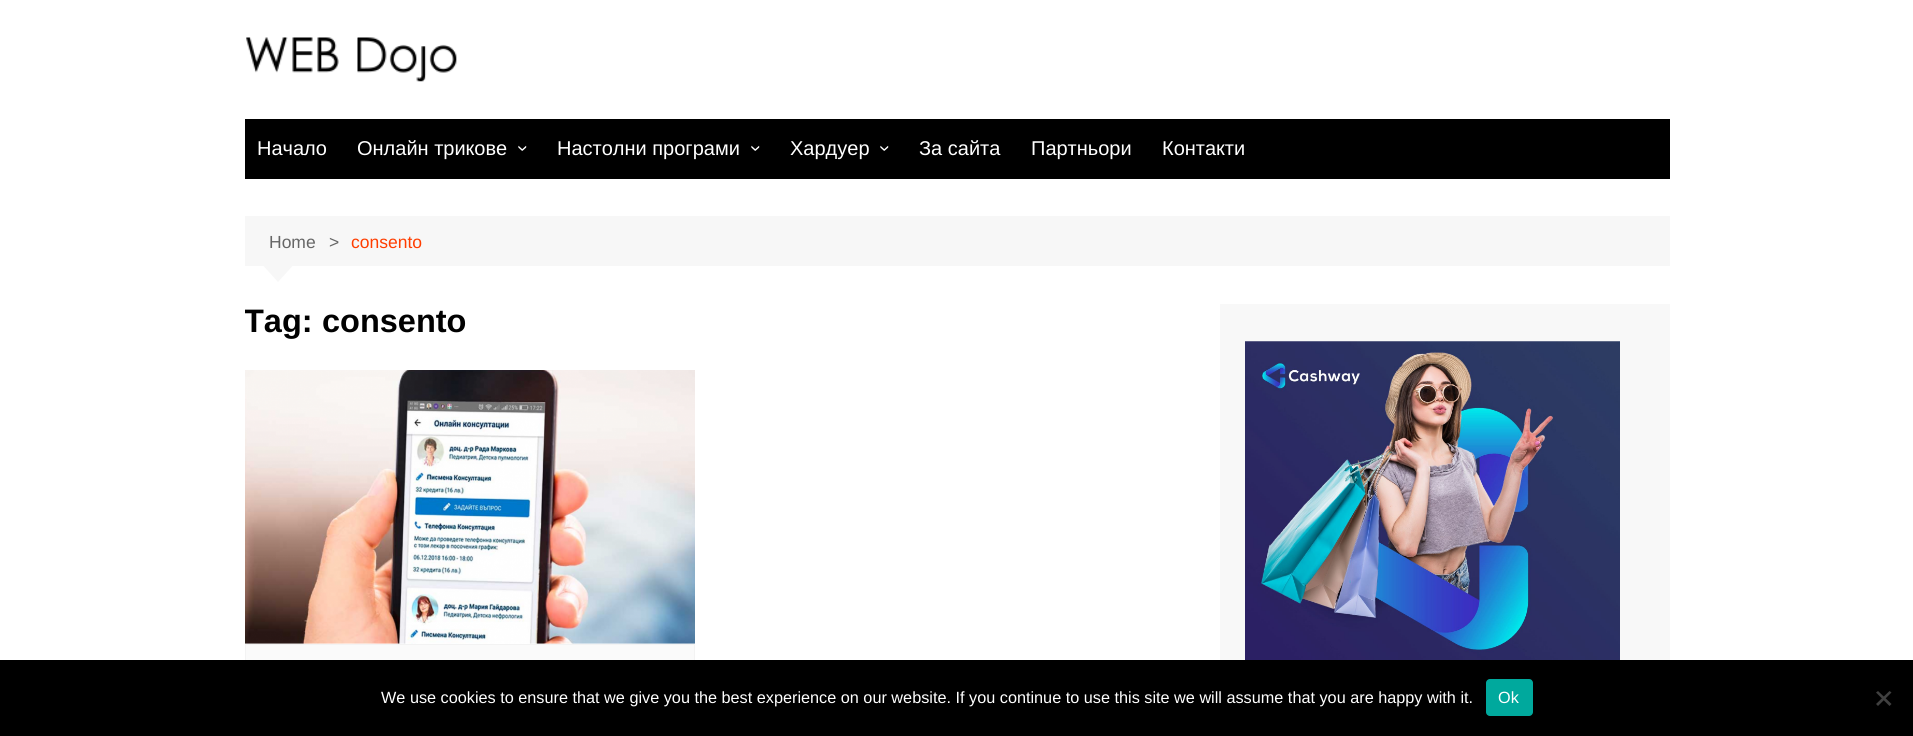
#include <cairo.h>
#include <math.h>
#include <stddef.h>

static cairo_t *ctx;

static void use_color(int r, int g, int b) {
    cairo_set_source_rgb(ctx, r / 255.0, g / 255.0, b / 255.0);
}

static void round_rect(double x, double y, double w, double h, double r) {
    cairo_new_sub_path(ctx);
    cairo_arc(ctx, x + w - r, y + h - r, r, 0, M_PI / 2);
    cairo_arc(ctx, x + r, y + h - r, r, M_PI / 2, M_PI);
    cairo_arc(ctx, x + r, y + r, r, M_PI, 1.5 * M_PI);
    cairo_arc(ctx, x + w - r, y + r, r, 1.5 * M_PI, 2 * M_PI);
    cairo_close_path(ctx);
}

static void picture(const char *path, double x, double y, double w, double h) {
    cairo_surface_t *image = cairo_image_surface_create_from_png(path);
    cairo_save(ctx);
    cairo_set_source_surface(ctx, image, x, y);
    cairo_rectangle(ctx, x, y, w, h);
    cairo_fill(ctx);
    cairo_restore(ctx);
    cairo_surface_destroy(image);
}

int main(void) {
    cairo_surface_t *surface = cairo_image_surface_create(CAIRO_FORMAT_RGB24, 1913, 736);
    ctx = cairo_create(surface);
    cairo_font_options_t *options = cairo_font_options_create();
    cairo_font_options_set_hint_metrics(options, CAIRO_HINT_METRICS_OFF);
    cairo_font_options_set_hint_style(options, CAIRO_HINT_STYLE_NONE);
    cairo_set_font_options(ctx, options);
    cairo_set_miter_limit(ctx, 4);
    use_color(255, 255, 255);
    cairo_paint(ctx);
    picture("img1.png", 246, 37, 211, 45);
    use_color(0, 0, 0);
    cairo_rectangle(ctx, 245, 119, 1425, 60);
    cairo_fill(ctx);
    cairo_select_font_face(ctx, "Liberation Sans", CAIRO_FONT_SLANT_NORMAL, CAIRO_FONT_WEIGHT_NORMAL);
    cairo_set_font_size(ctx, 20);
    use_color(255, 255, 255);
    cairo_move_to(ctx, 257, 155);
    cairo_show_text(ctx, "Начало");
    cairo_move_to(ctx, 357, 155);
    cairo_show_text(ctx, "Онлайн трикове");
    cairo_save(ctx);
    cairo_translate(ctx, 517, 145);
    cairo_rotate(ctx, 90 * M_PI / 180);
    cairo_move_to(ctx, 0, 0);
    cairo_show_text(ctx, "›");
    cairo_restore(ctx);
    cairo_move_to(ctx, 557, 155);
    cairo_show_text(ctx, "Настолни програми");
    cairo_save(ctx);
    cairo_translate(ctx, 750, 145);
    cairo_rotate(ctx, 90 * M_PI / 180);
    cairo_move_to(ctx, 0, 0);
    cairo_show_text(ctx, "›");
    cairo_restore(ctx);
    cairo_move_to(ctx, 790, 155);
    cairo_show_text(ctx, "Хардуер");
    cairo_save(ctx);
    cairo_translate(ctx, 879, 145);
    cairo_rotate(ctx, 90 * M_PI / 180);
    cairo_move_to(ctx, 0, 0);
    cairo_show_text(ctx, "›");
    cairo_restore(ctx);
    cairo_move_to(ctx, 919, 155);
    cairo_show_text(ctx, "За сайта");
    cairo_move_to(ctx, 1031, 155);
    cairo_show_text(ctx, "Партньори");
    cairo_move_to(ctx, 1162, 155);
    cairo_show_text(ctx, "Контакти");
    use_color(247, 247, 247);
    cairo_rectangle(ctx, 245, 216, 1425, 50);
    cairo_fill(ctx);
    cairo_set_font_size(ctx, 17.5);
    use_color(102, 102, 102);
    cairo_move_to(ctx, 269, 248);
    cairo_show_text(ctx, "Home");
    cairo_move_to(ctx, 329, 248);
    cairo_show_text(ctx, ">");
    use_color(255, 61, 0);
    cairo_move_to(ctx, 351, 248);
    cairo_show_text(ctx, "consento");
    use_color(247, 247, 247);
    cairo_new_path(ctx);
    cairo_move_to(ctx, 263, 265.5);
    cairo_line_to(ctx, 293, 265.5);
    cairo_line_to(ctx, 278, 282);
    cairo_close_path(ctx);
    cairo_fill(ctx);
    cairo_save(ctx);
    cairo_rectangle(ctx, 245, 304, 938, 35);
    cairo_clip(ctx);
    cairo_select_font_face(ctx, "Liberation Sans", CAIRO_FONT_SLANT_NORMAL, CAIRO_FONT_WEIGHT_BOLD);
    cairo_set_font_size(ctx, 32.5);
    use_color(1, 1, 1);
    cairo_move_to(ctx, 244, 332);
    cairo_show_text(ctx, "Tag:");
    cairo_restore(ctx);
    cairo_select_font_face(ctx, "Liberation Sans", CAIRO_FONT_SLANT_NORMAL, CAIRO_FONT_WEIGHT_BOLD);
    cairo_set_font_size(ctx, 32.5);
    use_color(1, 1, 1);
    cairo_move_to(ctx, 322, 332);
    cairo_show_text(ctx, "consento");
    picture("img2.png", 245, 370, 450, 274);
    use_color(250, 250, 250);
    cairo_rectangle(ctx, 246, 645, 448, 15);
    cairo_fill(ctx);
    cairo_rectangle(ctx, 245.5, 644.5, 449, 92);
    use_color(243, 243, 243);
    cairo_set_line_width(ctx, 1);
    cairo_stroke(ctx);
    use_color(248, 248, 248);
    cairo_rectangle(ctx, 1220, 304, 450, 356);
    cairo_fill(ctx);
    picture("img3.png", 1245, 341, 375, 319);
    use_color(0, 0, 0);
    cairo_rectangle(ctx, 0, 660, 1913, 76);
    cairo_fill(ctx);
    cairo_select_font_face(ctx, "Liberation Sans", CAIRO_FONT_SLANT_NORMAL, CAIRO_FONT_WEIGHT_NORMAL);
    cairo_set_font_size(ctx, 16.25);
    use_color(255, 255, 255);
    cairo_move_to(ctx, 381, 703);
    cairo_show_text(ctx, "We use cookies to ensure that we give you the best experience on our website. If you continue to use this site we will assume that you are happy with it.");
    use_color(0, 169, 157);
    round_rect(1486, 679, 47, 37, 4);
    cairo_fill(ctx);
    use_color(255, 255, 255);
    cairo_move_to(ctx, 1498, 703);
    cairo_show_text(ctx, "Ok");
    use_color(64, 64, 64);
    cairo_new_path(ctx);
    cairo_move_to(ctx, 1889.5, 691);
    cairo_line_to(ctx, 1891.5, 692.5);
    cairo_line_to(ctx, 1878, 706);
    cairo_line_to(ctx, 1876, 704);
    cairo_close_path(ctx);
    cairo_fill(ctx);
    cairo_new_path(ctx);
    cairo_move_to(ctx, 1876, 692.5);
    cairo_line_to(ctx, 1878, 691);
    cairo_line_to(ctx, 1891.5, 704);
    cairo_line_to(ctx, 1889.5, 706);
    cairo_close_path(ctx);
    cairo_fill(ctx);
    cairo_surface_write_to_png(surface, "result.png");
    cairo_font_options_destroy(options);
    cairo_destroy(ctx);
    cairo_surface_destroy(surface);
    return 0;
}
